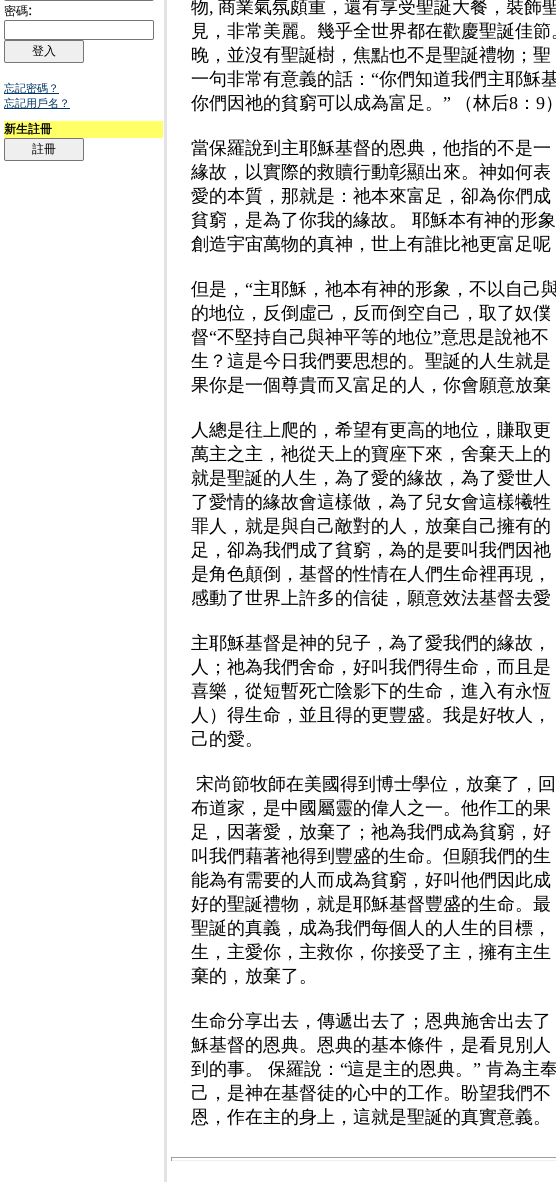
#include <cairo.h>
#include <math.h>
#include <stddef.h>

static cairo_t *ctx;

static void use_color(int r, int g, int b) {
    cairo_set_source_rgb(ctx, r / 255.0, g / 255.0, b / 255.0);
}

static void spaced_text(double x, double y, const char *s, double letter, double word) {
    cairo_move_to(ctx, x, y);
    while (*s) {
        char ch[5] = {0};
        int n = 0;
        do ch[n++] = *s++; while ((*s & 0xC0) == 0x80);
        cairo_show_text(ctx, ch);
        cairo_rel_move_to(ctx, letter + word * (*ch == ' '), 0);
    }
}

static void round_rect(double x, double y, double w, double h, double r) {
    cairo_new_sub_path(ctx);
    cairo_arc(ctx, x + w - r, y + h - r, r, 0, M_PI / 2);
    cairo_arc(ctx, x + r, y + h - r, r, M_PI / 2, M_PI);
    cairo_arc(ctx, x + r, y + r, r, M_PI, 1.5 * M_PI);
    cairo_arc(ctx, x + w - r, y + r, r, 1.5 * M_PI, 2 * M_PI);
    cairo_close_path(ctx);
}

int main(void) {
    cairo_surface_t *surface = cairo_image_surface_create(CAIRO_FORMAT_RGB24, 556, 1182);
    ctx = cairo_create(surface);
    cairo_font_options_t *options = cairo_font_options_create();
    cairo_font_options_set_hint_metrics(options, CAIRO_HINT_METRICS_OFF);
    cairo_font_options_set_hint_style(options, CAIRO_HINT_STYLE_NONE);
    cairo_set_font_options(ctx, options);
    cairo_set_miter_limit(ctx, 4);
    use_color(255, 255, 255);
    cairo_paint(ctx);
    use_color(227, 227, 227);
    cairo_rectangle(ctx, 164, 0, 3, 1182);
    cairo_fill(ctx);
    round_rect(4.5, -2.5, 149, 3, 1.5);
    use_color(118, 118, 118);
    cairo_set_line_width(ctx, 1);
    cairo_stroke(ctx);
    cairo_select_font_face(ctx, "WenQuanYi Zen Hei Medium", CAIRO_FONT_SLANT_NORMAL, CAIRO_FONT_WEIGHT_NORMAL);
    cairo_set_font_size(ctx, 12);
    use_color(0, 0, 0);
    cairo_move_to(ctx, 4, 15);
    cairo_show_text(ctx, "密碼");
    cairo_select_font_face(ctx, "Liberation Serif", CAIRO_FONT_SLANT_NORMAL, CAIRO_FONT_WEIGHT_NORMAL);
    cairo_set_font_size(ctx, 16);
    cairo_move_to(ctx, 28, 15);
    cairo_show_text(ctx, ":");
    round_rect(4.5, 20.5, 149, 19, 1.5);
    use_color(118, 118, 118);
    cairo_stroke(ctx);
    use_color(239, 239, 239);
    round_rect(4.5, 40.5, 79, 22, 1.5);
    cairo_fill_preserve(ctx);
    use_color(118, 118, 118);
    cairo_stroke(ctx);
    cairo_select_font_face(ctx, "WenQuanYi Zen Hei Medium", CAIRO_FONT_SLANT_NORMAL, CAIRO_FONT_WEIGHT_NORMAL);
    cairo_set_font_size(ctx, 12);
    use_color(0, 0, 0);
    cairo_move_to(ctx, 32, 55);
    cairo_show_text(ctx, "登入");
    use_color(0, 51, 102);
    cairo_rectangle(ctx, 4, 93, 55, 1);
    cairo_fill(ctx);
    cairo_set_font_size(ctx, 11);
    cairo_move_to(ctx, 4, 92);
    cairo_show_text(ctx, "忘記密碼？");
    cairo_rectangle(ctx, 4, 108, 66, 1);
    cairo_fill(ctx);
    cairo_move_to(ctx, 4, 107);
    cairo_show_text(ctx, "忘記用戶名？");
    use_color(255, 255, 102);
    cairo_rectangle(ctx, 4, 121, 159, 17);
    cairo_fill(ctx);
    cairo_select_font_face(ctx, "WenQuanYi Zen Hei", CAIRO_FONT_SLANT_NORMAL, CAIRO_FONT_WEIGHT_BOLD);
    cairo_set_font_size(ctx, 12);
    use_color(0, 0, 0);
    cairo_move_to(ctx, 4, 133);
    cairo_show_text(ctx, "新生註冊");
    use_color(239, 239, 239);
    round_rect(4.5, 138.5, 79, 22, 1.5);
    cairo_fill_preserve(ctx);
    use_color(118, 118, 118);
    cairo_stroke(ctx);
    cairo_select_font_face(ctx, "WenQuanYi Zen Hei Medium", CAIRO_FONT_SLANT_NORMAL, CAIRO_FONT_WEIGHT_NORMAL);
    use_color(0, 0, 0);
    cairo_move_to(ctx, 32, 153);
    cairo_show_text(ctx, "註冊");
    cairo_set_font_size(ctx, 18);
    cairo_move_to(ctx, 191, 13);
    cairo_show_text(ctx, "物");
    cairo_select_font_face(ctx, "Liberation Serif", CAIRO_FONT_SLANT_NORMAL, CAIRO_FONT_WEIGHT_NORMAL);
    cairo_move_to(ctx, 209, 13);
    cairo_show_text(ctx, ",");
    cairo_select_font_face(ctx, "WenQuanYi Zen Hei Medium", CAIRO_FONT_SLANT_NORMAL, CAIRO_FONT_WEIGHT_NORMAL);
    cairo_move_to(ctx, 218, 13);
    cairo_show_text(ctx, "商業氣氛頗重，還有享受聖誕大餐，裝飾聖");
    cairo_move_to(ctx, 191, 37);
    cairo_show_text(ctx, "見，非常美麗。幾乎全世界都在歡慶聖誕佳節。");
    cairo_move_to(ctx, 191, 61);
    cairo_show_text(ctx, "晚，並沒有聖誕樹，焦點也不是聖誕禮物；聖");
    cairo_move_to(ctx, 191, 85);
    cairo_show_text(ctx, "一句非常有意義的話：");
    cairo_select_font_face(ctx, "Liberation Serif", CAIRO_FONT_SLANT_NORMAL, CAIRO_FONT_WEIGHT_NORMAL);
    cairo_move_to(ctx, 371, 85);
    cairo_show_text(ctx, "“");
    cairo_select_font_face(ctx, "WenQuanYi Zen Hei Medium", CAIRO_FONT_SLANT_NORMAL, CAIRO_FONT_WEIGHT_NORMAL);
    cairo_move_to(ctx, 379, 85);
    cairo_show_text(ctx, "你們知道我們主耶穌基");
    cairo_move_to(ctx, 191, 109);
    cairo_show_text(ctx, "你們因祂的貧窮可以成為富足。");
    cairo_select_font_face(ctx, "Liberation Serif", CAIRO_FONT_SLANT_NORMAL, CAIRO_FONT_WEIGHT_NORMAL);
    cairo_move_to(ctx, 443, 109);
    cairo_show_text(ctx, "”");
    cairo_select_font_face(ctx, "WenQuanYi Zen Hei Medium", CAIRO_FONT_SLANT_NORMAL, CAIRO_FONT_WEIGHT_NORMAL);
    cairo_move_to(ctx, 455, 109);
    cairo_show_text(ctx, "（林后");
    cairo_select_font_face(ctx, "Liberation Serif", CAIRO_FONT_SLANT_NORMAL, CAIRO_FONT_WEIGHT_NORMAL);
    cairo_move_to(ctx, 509, 109);
    cairo_show_text(ctx, "8");
    cairo_select_font_face(ctx, "WenQuanYi Zen Hei Medium", CAIRO_FONT_SLANT_NORMAL, CAIRO_FONT_WEIGHT_NORMAL);
    cairo_move_to(ctx, 518, 109);
    cairo_show_text(ctx, "：");
    cairo_select_font_face(ctx, "Liberation Serif", CAIRO_FONT_SLANT_NORMAL, CAIRO_FONT_WEIGHT_NORMAL);
    cairo_move_to(ctx, 536, 109);
    cairo_show_text(ctx, "9");
    cairo_select_font_face(ctx, "WenQuanYi Zen Hei Medium", CAIRO_FONT_SLANT_NORMAL, CAIRO_FONT_WEIGHT_NORMAL);
    cairo_move_to(ctx, 545, 109);
    cairo_show_text(ctx, "）");
    cairo_move_to(ctx, 191, 154);
    cairo_show_text(ctx, "當保羅說到主耶穌基督的恩典，他指的不是一");
    cairo_move_to(ctx, 191, 178);
    cairo_show_text(ctx, "緣故，以實際的救贖行動彰顯出來。神如何表");
    cairo_move_to(ctx, 191, 202);
    cairo_show_text(ctx, "愛的本質，那就是：祂本來富足，卻為你們成");
    cairo_move_to(ctx, 191, 226);
    cairo_show_text(ctx, "貧窮，是為了你我的緣故。");
    cairo_move_to(ctx, 412, 226);
    cairo_show_text(ctx, "耶穌本有神的形象");
    cairo_move_to(ctx, 191, 250);
    cairo_show_text(ctx, "創造宇宙萬物的真神，世上有誰比祂更富足呢");
    cairo_move_to(ctx, 191, 295);
    cairo_show_text(ctx, "但是，");
    cairo_select_font_face(ctx, "Liberation Serif", CAIRO_FONT_SLANT_NORMAL, CAIRO_FONT_WEIGHT_NORMAL);
    cairo_move_to(ctx, 245, 295);
    cairo_show_text(ctx, "“");
    cairo_select_font_face(ctx, "WenQuanYi Zen Hei Medium", CAIRO_FONT_SLANT_NORMAL, CAIRO_FONT_WEIGHT_NORMAL);
    cairo_move_to(ctx, 253, 295);
    cairo_show_text(ctx, "主耶穌，祂本有神的形象，不以自己與");
    cairo_move_to(ctx, 191, 319);
    cairo_show_text(ctx, "的地位，反倒虛己，反而倒空自己，取了奴僕");
    cairo_move_to(ctx, 191, 343);
    cairo_show_text(ctx, "督");
    cairo_select_font_face(ctx, "Liberation Serif", CAIRO_FONT_SLANT_NORMAL, CAIRO_FONT_WEIGHT_NORMAL);
    cairo_move_to(ctx, 209, 343);
    cairo_show_text(ctx, "“");
    cairo_select_font_face(ctx, "WenQuanYi Zen Hei Medium", CAIRO_FONT_SLANT_NORMAL, CAIRO_FONT_WEIGHT_NORMAL);
    cairo_move_to(ctx, 217, 343);
    cairo_show_text(ctx, "不堅持自己與神平等的地位");
    cairo_select_font_face(ctx, "Liberation Serif", CAIRO_FONT_SLANT_NORMAL, CAIRO_FONT_WEIGHT_NORMAL);
    cairo_move_to(ctx, 433, 343);
    cairo_show_text(ctx, "”");
    cairo_select_font_face(ctx, "WenQuanYi Zen Hei Medium", CAIRO_FONT_SLANT_NORMAL, CAIRO_FONT_WEIGHT_NORMAL);
    cairo_move_to(ctx, 441, 343);
    cairo_show_text(ctx, "意思是說祂不");
    cairo_move_to(ctx, 191, 367);
    cairo_show_text(ctx, "生？這是今日我們要思想的。聖誕的人生就是");
    cairo_move_to(ctx, 191, 391);
    cairo_show_text(ctx, "果你是一個尊貴而又富足的人，你會願意放棄");
    cairo_move_to(ctx, 191, 436);
    cairo_show_text(ctx, "人總是往上爬的，希望有更高的地位，賺取更");
    cairo_move_to(ctx, 191, 460);
    cairo_show_text(ctx, "萬主之主，祂從天上的寶座下來，舍棄天上的");
    cairo_move_to(ctx, 191, 484);
    cairo_show_text(ctx, "就是聖誕的人生，為了愛的緣故，為了愛世人");
    cairo_move_to(ctx, 191, 508);
    cairo_show_text(ctx, "了愛情的緣故會這樣做，為了兒女會這樣犧牲");
    cairo_move_to(ctx, 191, 532);
    cairo_show_text(ctx, "罪人，就是與自己敵對的人，放棄自己擁有的");
    cairo_move_to(ctx, 191, 556);
    cairo_show_text(ctx, "足，卻為我們成了貧窮，為的是要叫我們因祂");
    cairo_move_to(ctx, 191, 580);
    cairo_show_text(ctx, "是角色顛倒，基督的性情在人們生命裡再現，");
    cairo_move_to(ctx, 191, 604);
    cairo_show_text(ctx, "感動了世界上許多的信徒，願意效法基督去愛");
    cairo_move_to(ctx, 191, 649);
    cairo_show_text(ctx, "主耶穌基督是神的兒子，為了愛我們的緣故，");
    cairo_move_to(ctx, 191, 673);
    cairo_show_text(ctx, "人；祂為我們舍命，好叫我們得生命，而且是");
    cairo_move_to(ctx, 191, 697);
    cairo_show_text(ctx, "喜樂，從短暫死亡陰影下的生命，進入有永恆");
    cairo_move_to(ctx, 191, 721);
    cairo_show_text(ctx, "人）得生命，並且得的更豐盛。我是好牧人，");
    cairo_move_to(ctx, 191, 745);
    cairo_show_text(ctx, "己的愛。");
    cairo_move_to(ctx, 196, 790);
    cairo_show_text(ctx, "宋尚節牧師在美國得到博士學位，放棄了，回");
    spaced_text(191, 814, "布道家，是中國屬靈的偉人之一。他作工的果", 0, -1);
    cairo_move_to(ctx, 191, 838);
    cairo_show_text(ctx, "足，因著愛，放棄了；祂為我們成為貧窮，好");
    cairo_move_to(ctx, 191, 862);
    cairo_show_text(ctx, "叫我們藉著祂得到豐盛的生命。但願我們的生");
    cairo_move_to(ctx, 191, 886);
    cairo_show_text(ctx, "能為有需要的人而成為貧窮，好叫他們因此成");
    cairo_move_to(ctx, 191, 910);
    cairo_show_text(ctx, "好的聖誕禮物，就是耶穌基督豐盛的生命。最");
    cairo_move_to(ctx, 191, 934);
    cairo_show_text(ctx, "聖誕的真義，成為我們每個人的人生的目標，");
    cairo_move_to(ctx, 191, 958);
    cairo_show_text(ctx, "生，主愛你，主救你，你接受了主，擁有主生");
    cairo_move_to(ctx, 191, 982);
    cairo_show_text(ctx, "棄的，放棄了。");
    cairo_move_to(ctx, 191, 1027);
    cairo_show_text(ctx, "生命分享出去，傳遞出去了；恩典施舍出去了");
    cairo_move_to(ctx, 191, 1051);
    cairo_show_text(ctx, "穌基督的恩典。恩典的基本條件，是看見別人");
    cairo_move_to(ctx, 191, 1075);
    cairo_show_text(ctx, "到的事。");
    cairo_move_to(ctx, 268, 1075);
    cairo_show_text(ctx, "保羅說：");
    cairo_select_font_face(ctx, "Liberation Serif", CAIRO_FONT_SLANT_NORMAL, CAIRO_FONT_WEIGHT_NORMAL);
    cairo_move_to(ctx, 340, 1075);
    cairo_show_text(ctx, "“");
    cairo_select_font_face(ctx, "WenQuanYi Zen Hei Medium", CAIRO_FONT_SLANT_NORMAL, CAIRO_FONT_WEIGHT_NORMAL);
    cairo_move_to(ctx, 347, 1075);
    cairo_show_text(ctx, "這是主的恩典。");
    cairo_select_font_face(ctx, "Liberation Serif", CAIRO_FONT_SLANT_NORMAL, CAIRO_FONT_WEIGHT_NORMAL);
    cairo_move_to(ctx, 473, 1075);
    cairo_show_text(ctx, "”");
    cairo_select_font_face(ctx, "WenQuanYi Zen Hei Medium", CAIRO_FONT_SLANT_NORMAL, CAIRO_FONT_WEIGHT_NORMAL);
    cairo_move_to(ctx, 486, 1075);
    cairo_show_text(ctx, "肯為主奉");
    cairo_move_to(ctx, 191, 1099);
    cairo_show_text(ctx, "己，是神在基督徒的心中的工作。盼望我們不");
    cairo_move_to(ctx, 191, 1123);
    cairo_show_text(ctx, "恩，作在主的身上，這就是聖誕的真實意義。");
    use_color(159, 159, 159);
    cairo_rectangle(ctx, 171, 1157, 385, 1);
    cairo_fill(ctx);
    use_color(238, 238, 238);
    cairo_rectangle(ctx, 171, 1160, 385, 1);
    cairo_fill(ctx);
    use_color(159, 159, 159);
    cairo_rectangle(ctx, 171, 1157, 1, 4);
    cairo_fill(ctx);
    cairo_surface_write_to_png(surface, "result.png");
    cairo_font_options_destroy(options);
    cairo_destroy(ctx);
    cairo_surface_destroy(surface);
    return 0;
}
